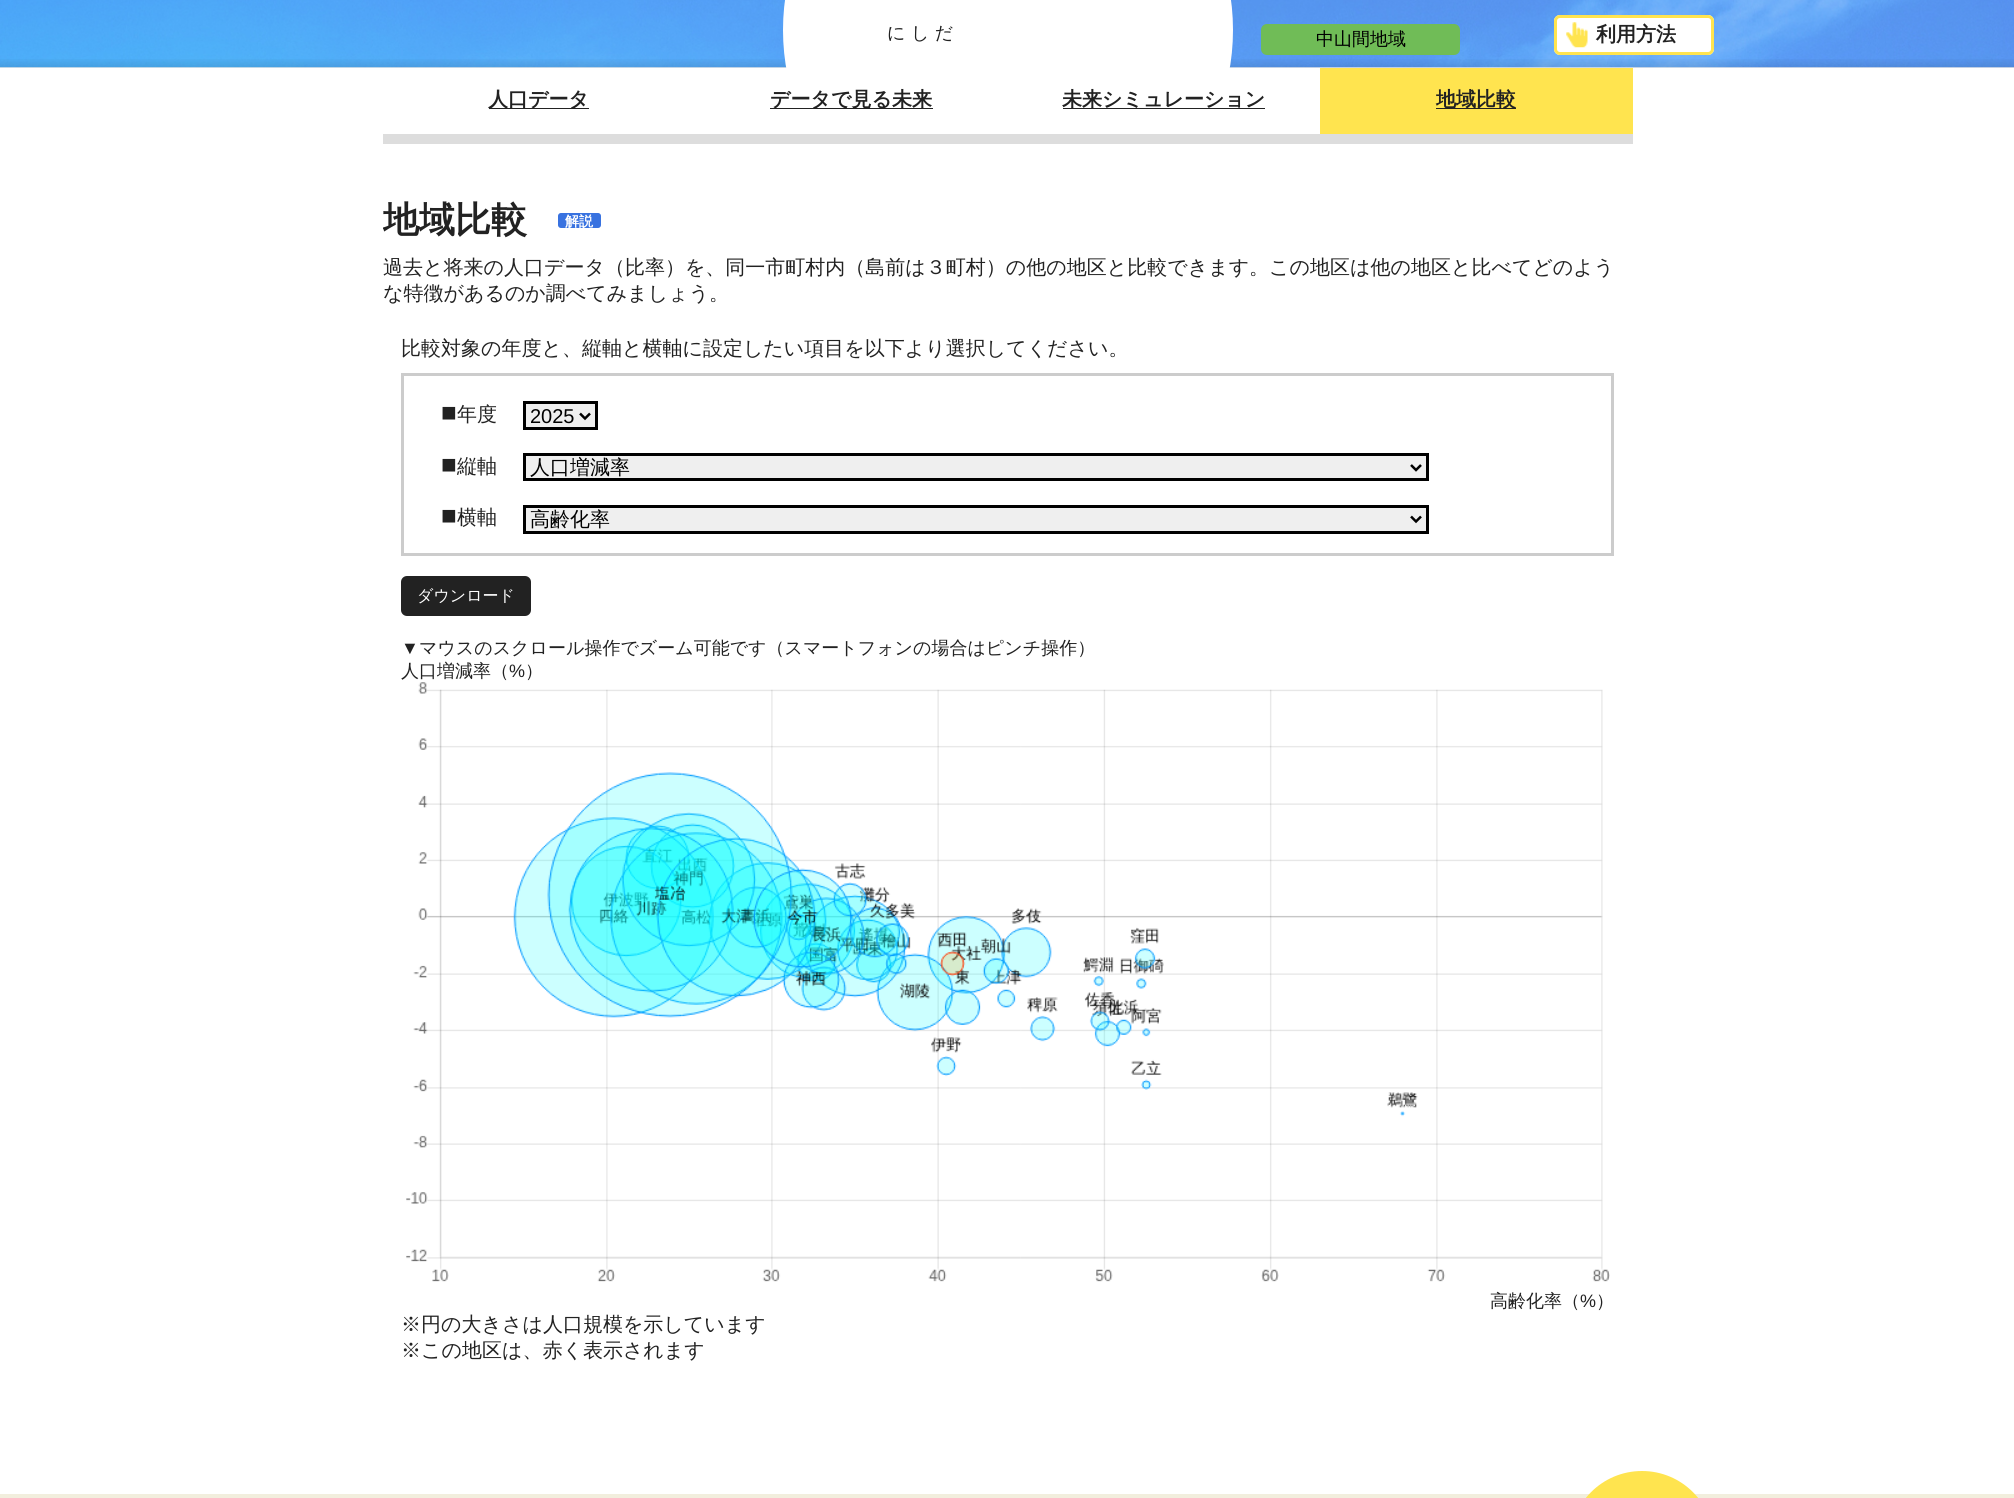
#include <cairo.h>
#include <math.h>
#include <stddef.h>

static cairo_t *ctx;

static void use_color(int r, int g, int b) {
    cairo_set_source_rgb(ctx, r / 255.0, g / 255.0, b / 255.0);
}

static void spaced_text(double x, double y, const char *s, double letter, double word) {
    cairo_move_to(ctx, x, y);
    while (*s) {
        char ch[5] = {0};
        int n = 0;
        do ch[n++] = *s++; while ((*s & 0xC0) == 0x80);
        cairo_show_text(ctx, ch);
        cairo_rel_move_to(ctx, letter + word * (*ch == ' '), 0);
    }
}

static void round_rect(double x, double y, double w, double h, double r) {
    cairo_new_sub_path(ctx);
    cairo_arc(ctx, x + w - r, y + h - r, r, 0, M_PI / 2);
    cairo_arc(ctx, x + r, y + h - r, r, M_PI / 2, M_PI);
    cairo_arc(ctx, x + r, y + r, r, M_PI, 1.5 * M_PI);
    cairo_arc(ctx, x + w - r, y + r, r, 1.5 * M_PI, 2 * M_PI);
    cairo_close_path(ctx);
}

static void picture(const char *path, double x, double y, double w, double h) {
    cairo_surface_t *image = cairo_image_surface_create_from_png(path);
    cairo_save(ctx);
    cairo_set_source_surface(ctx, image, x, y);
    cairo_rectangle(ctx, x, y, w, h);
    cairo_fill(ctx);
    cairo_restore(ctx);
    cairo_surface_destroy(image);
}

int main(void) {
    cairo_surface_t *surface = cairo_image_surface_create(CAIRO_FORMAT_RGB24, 2014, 1498);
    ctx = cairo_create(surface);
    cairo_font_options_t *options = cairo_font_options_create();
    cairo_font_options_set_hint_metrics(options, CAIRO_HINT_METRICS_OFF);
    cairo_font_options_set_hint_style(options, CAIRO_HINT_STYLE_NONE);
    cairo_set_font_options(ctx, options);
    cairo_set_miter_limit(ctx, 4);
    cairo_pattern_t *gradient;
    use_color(255, 255, 255);
    cairo_paint(ctx);
    picture("img1.png", 0, 0, 2014, 68);
    gradient = cairo_pattern_create_linear(1008, 57, 1008, 68);
    cairo_pattern_add_color_stop_rgba(gradient, 0, 0, 0, 0, 0);
    cairo_pattern_add_color_stop_rgba(gradient, 1, 0, 0, 0, 0.1);
    cairo_set_source(ctx, gradient);
    cairo_pattern_destroy(gradient);
    cairo_rectangle(ctx, 0, 59, 2014, 9);
    cairo_fill(ctx);
    use_color(221, 221, 221);
    cairo_rectangle(ctx, 383, 134, 1250, 10);
    cairo_fill(ctx);
    use_color(34, 34, 34);
    cairo_rectangle(ctx, 770, 108, 163, 1);
    cairo_fill(ctx);
    cairo_select_font_face(ctx, "WenQuanYi Zen Hei", CAIRO_FONT_SLANT_NORMAL, CAIRO_FONT_WEIGHT_BOLD);
    cairo_set_font_size(ctx, 20);
    cairo_move_to(ctx, 770, 106);
    cairo_show_text(ctx, "データで見る未来");
    cairo_rectangle(ctx, 1063, 108, 202, 1);
    cairo_fill(ctx);
    cairo_move_to(ctx, 1062, 106);
    cairo_show_text(ctx, "未来シミュレーション");
    cairo_save(ctx);
    cairo_rectangle(ctx, 0, 0, 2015, 68);
    cairo_clip(ctx);
    use_color(255, 255, 255);
    cairo_arc(ctx, 1008, 30, 225, 0, 2 * M_PI);
    cairo_fill(ctx);
    cairo_restore(ctx);
    cairo_select_font_face(ctx, "WenQuanYi Zen Hei Medium", CAIRO_FONT_SLANT_NORMAL, CAIRO_FONT_WEIGHT_NORMAL);
    cairo_set_font_size(ctx, 18);
    spaced_text(887, 39, "にしだ", 5.5, 0);
    use_color(112, 188, 87);
    round_rect(1261, 24, 199, 31, 6);
    cairo_fill(ctx);
    use_color(0, 0, 0);
    cairo_move_to(ctx, 1316, 45);
    cairo_show_text(ctx, "中山間地域");
    use_color(255, 255, 255);
    round_rect(1554, 15, 160, 40, 6);
    cairo_fill(ctx);
    picture("img2.png", 1566, 22, 22, 26);
    round_rect(1555.5, 16.5, 157, 37, 4.5);
    use_color(255, 228, 79);
    cairo_set_line_width(ctx, 3);
    cairo_stroke(ctx);
    cairo_select_font_face(ctx, "WenQuanYi Zen Hei", CAIRO_FONT_SLANT_NORMAL, CAIRO_FONT_WEIGHT_BOLD);
    cairo_set_font_size(ctx, 20);
    use_color(34, 34, 34);
    cairo_move_to(ctx, 1596, 41);
    cairo_show_text(ctx, "利用方法");
    cairo_rectangle(ctx, 489, 108, 100, 1);
    cairo_fill(ctx);
    cairo_move_to(ctx, 488, 106);
    cairo_show_text(ctx, "人口データ");
    use_color(255, 228, 79);
    cairo_rectangle(ctx, 1320, 68, 313, 66);
    cairo_fill(ctx);
    use_color(34, 34, 34);
    cairo_rectangle(ctx, 1436, 108, 80, 1);
    cairo_fill(ctx);
    cairo_move_to(ctx, 1436, 106);
    cairo_show_text(ctx, "地域比較");
    cairo_save(ctx);
    cairo_rectangle(ctx, 383, 184, 1250, 1310);
    cairo_clip(ctx);
    cairo_set_font_size(ctx, 36);
    cairo_move_to(ctx, 383, 232);
    cairo_show_text(ctx, "地域比較");
    cairo_restore(ctx);
    use_color(56, 114, 224);
    round_rect(556.5, 211.5, 46, 18, 4.5);
    cairo_fill_preserve(ctx);
    use_color(255, 255, 255);
    cairo_stroke(ctx);
    cairo_set_font_size(ctx, 14);
    cairo_move_to(ctx, 565, 226);
    cairo_show_text(ctx, "解説");
    cairo_select_font_face(ctx, "WenQuanYi Zen Hei Medium", CAIRO_FONT_SLANT_NORMAL, CAIRO_FONT_WEIGHT_NORMAL);
    cairo_set_font_size(ctx, 20);
    use_color(34, 34, 34);
    cairo_move_to(ctx, 383, 274);
    cairo_show_text(ctx, "過去と将来の人口データ（比率）を、同一市町村内（島前は３町村）の他の地区と比較できます。この地区は他の地区と比べてどのよう");
    cairo_move_to(ctx, 383, 300);
    cairo_show_text(ctx, "な特徴があるのか調べてみましょう。");
    cairo_move_to(ctx, 401, 355);
    cairo_show_text(ctx, "比較対象の年度と、縦軸と横軸に設定したい項目を以下より選択してください。");
    cairo_rectangle(ctx, 402.5, 374.5, 1210, 180);
    use_color(204, 204, 204);
    cairo_stroke(ctx);
    cairo_select_font_face(ctx, "Liberation Sans", CAIRO_FONT_SLANT_NORMAL, CAIRO_FONT_WEIGHT_NORMAL);
    cairo_set_font_size(ctx, 26);
    use_color(34, 34, 34);
    cairo_move_to(ctx, 441, 421);
    cairo_show_text(ctx, "■");
    cairo_select_font_face(ctx, "WenQuanYi Zen Hei Medium", CAIRO_FONT_SLANT_NORMAL, CAIRO_FONT_WEIGHT_NORMAL);
    cairo_set_font_size(ctx, 20);
    cairo_move_to(ctx, 457, 421);
    cairo_show_text(ctx, "年度");
    use_color(239, 239, 239);
    cairo_rectangle(ctx, 524.5, 402.5, 72, 26);
    cairo_fill_preserve(ctx);
    use_color(0, 0, 0);
    cairo_stroke(ctx);
    cairo_new_path(ctx);
    cairo_move_to(ctx, 580, 413.5);
    cairo_line_to(ctx, 585, 418.5);
    cairo_line_to(ctx, 590, 413.5);
    cairo_set_line_width(ctx, 2.5);
    cairo_stroke(ctx);
    cairo_select_font_face(ctx, "Liberation Sans", CAIRO_FONT_SLANT_NORMAL, CAIRO_FONT_WEIGHT_NORMAL);
    cairo_move_to(ctx, 530, 423);
    cairo_show_text(ctx, "2025");
    cairo_set_font_size(ctx, 26);
    use_color(34, 34, 34);
    cairo_move_to(ctx, 441, 473);
    cairo_show_text(ctx, "■");
    cairo_select_font_face(ctx, "WenQuanYi Zen Hei Medium", CAIRO_FONT_SLANT_NORMAL, CAIRO_FONT_WEIGHT_NORMAL);
    cairo_set_font_size(ctx, 20);
    cairo_move_to(ctx, 457, 473);
    cairo_show_text(ctx, "縦軸");
    use_color(239, 239, 239);
    cairo_rectangle(ctx, 524.5, 454.5, 903, 25);
    cairo_fill_preserve(ctx);
    use_color(0, 0, 0);
    cairo_set_line_width(ctx, 3);
    cairo_stroke(ctx);
    cairo_new_path(ctx);
    cairo_move_to(ctx, 1411, 465);
    cairo_line_to(ctx, 1416, 470);
    cairo_line_to(ctx, 1421, 465);
    cairo_set_line_width(ctx, 2.5);
    cairo_stroke(ctx);
    cairo_move_to(ctx, 530, 474);
    cairo_show_text(ctx, "人口増減率");
    cairo_select_font_face(ctx, "Liberation Sans", CAIRO_FONT_SLANT_NORMAL, CAIRO_FONT_WEIGHT_NORMAL);
    cairo_set_font_size(ctx, 26);
    use_color(34, 34, 34);
    cairo_move_to(ctx, 441, 524);
    cairo_show_text(ctx, "■");
    cairo_select_font_face(ctx, "WenQuanYi Zen Hei Medium", CAIRO_FONT_SLANT_NORMAL, CAIRO_FONT_WEIGHT_NORMAL);
    cairo_set_font_size(ctx, 20);
    cairo_move_to(ctx, 457, 524);
    cairo_show_text(ctx, "横軸");
    use_color(239, 239, 239);
    cairo_rectangle(ctx, 524.5, 506.5, 903, 26);
    cairo_fill_preserve(ctx);
    use_color(0, 0, 0);
    cairo_set_line_width(ctx, 3);
    cairo_stroke(ctx);
    cairo_new_path(ctx);
    cairo_move_to(ctx, 1411, 516.5);
    cairo_line_to(ctx, 1416, 521.5);
    cairo_line_to(ctx, 1421, 516.5);
    cairo_set_line_width(ctx, 2.5);
    cairo_stroke(ctx);
    cairo_move_to(ctx, 530, 526);
    cairo_show_text(ctx, "高齢化率");
    use_color(34, 34, 34);
    round_rect(401, 576, 130, 40, 6);
    cairo_fill(ctx);
    cairo_set_font_size(ctx, 16);
    use_color(255, 255, 255);
    cairo_move_to(ctx, 417, 601);
    cairo_show_text(ctx, "ダウンロード");
    cairo_select_font_face(ctx, "Liberation Sans", CAIRO_FONT_SLANT_NORMAL, CAIRO_FONT_WEIGHT_NORMAL);
    cairo_set_font_size(ctx, 18);
    use_color(34, 34, 34);
    cairo_move_to(ctx, 401, 654);
    cairo_show_text(ctx, "▼");
    cairo_select_font_face(ctx, "WenQuanYi Zen Hei Medium", CAIRO_FONT_SLANT_NORMAL, CAIRO_FONT_WEIGHT_NORMAL);
    cairo_move_to(ctx, 419, 654);
    cairo_show_text(ctx, "マウスのスクロール操作でズーム可能です（スマートフォンの場合はピンチ操作）");
    cairo_move_to(ctx, 401, 677);
    cairo_show_text(ctx, "人口増減率（");
    cairo_select_font_face(ctx, "Liberation Sans", CAIRO_FONT_SLANT_NORMAL, CAIRO_FONT_WEIGHT_NORMAL);
    cairo_move_to(ctx, 509, 677);
    cairo_show_text(ctx, "%");
    cairo_select_font_face(ctx, "WenQuanYi Zen Hei Medium", CAIRO_FONT_SLANT_NORMAL, CAIRO_FONT_WEIGHT_NORMAL);
    cairo_move_to(ctx, 525, 677);
    cairo_show_text(ctx, "）");
    picture("img3.png", 406, 682, 1204, 600);
    cairo_move_to(ctx, 1490, 1307);
    cairo_show_text(ctx, "高齢化率（");
    cairo_select_font_face(ctx, "Liberation Sans", CAIRO_FONT_SLANT_NORMAL, CAIRO_FONT_WEIGHT_NORMAL);
    cairo_move_to(ctx, 1580, 1307);
    cairo_show_text(ctx, "%");
    cairo_select_font_face(ctx, "WenQuanYi Zen Hei Medium", CAIRO_FONT_SLANT_NORMAL, CAIRO_FONT_WEIGHT_NORMAL);
    cairo_move_to(ctx, 1596, 1307);
    cairo_show_text(ctx, "）");
    cairo_set_font_size(ctx, 20);
    cairo_move_to(ctx, 401, 1331);
    cairo_show_text(ctx, "※円の大きさは人口規模を示しています");
    cairo_move_to(ctx, 401, 1357);
    cairo_show_text(ctx, "※この地区は、赤く表示されます");
    use_color(242, 238, 221);
    cairo_rectangle(ctx, 0, 1494, 2014, 4);
    cairo_fill(ctx);
    use_color(255, 228, 79);
    round_rect(1570, 1471, 144, 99, 72);
    cairo_fill(ctx);
    cairo_surface_write_to_png(surface, "result.png");
    cairo_font_options_destroy(options);
    cairo_destroy(ctx);
    cairo_surface_destroy(surface);
    return 0;
}
